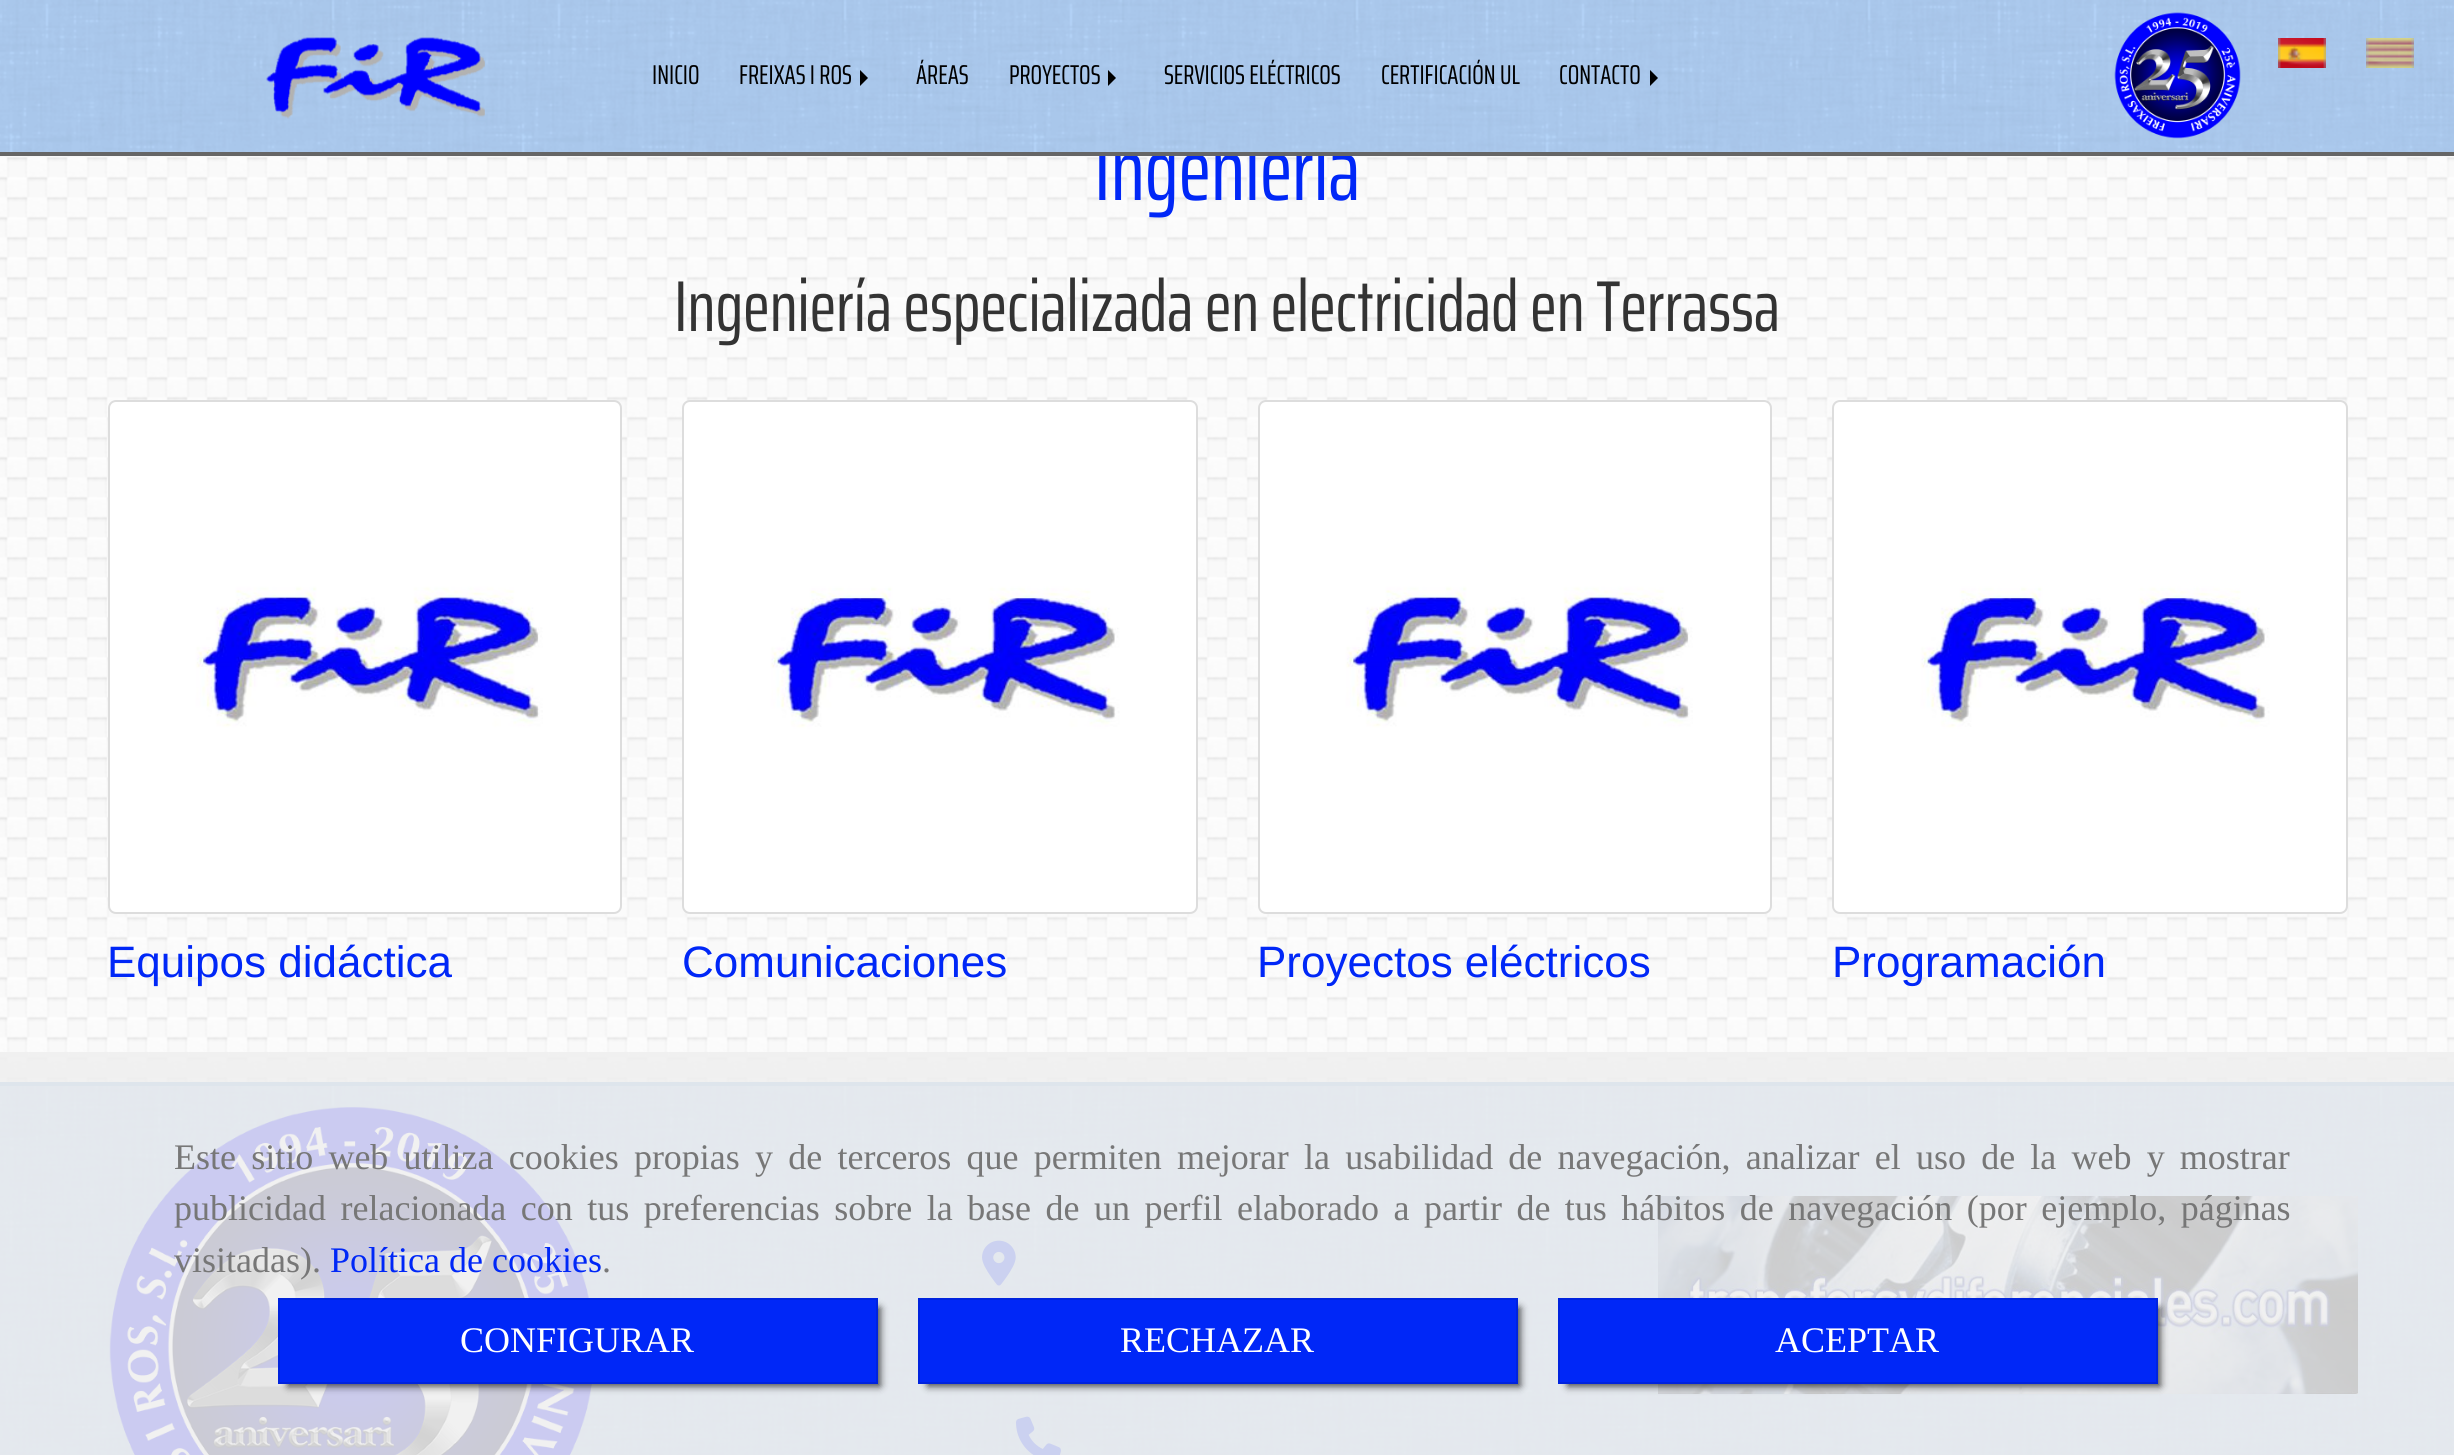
#include <cairo.h>
#include <math.h>
#include <stddef.h>

static cairo_t *ctx;

static void use_color(int r, int g, int b) {
    cairo_set_source_rgb(ctx, r / 255.0, g / 255.0, b / 255.0);
}

static void spaced_text(double x, double y, const char *s, double letter, double word) {
    cairo_move_to(ctx, x, y);
    while (*s) {
        char ch[5] = {0};
        int n = 0;
        do ch[n++] = *s++; while ((*s & 0xC0) == 0x80);
        cairo_show_text(ctx, ch);
        cairo_rel_move_to(ctx, letter + word * (*ch == ' '), 0);
    }
}

static void round_rect(double x, double y, double w, double h, double r) {
    cairo_new_sub_path(ctx);
    cairo_arc(ctx, x + w - r, y + h - r, r, 0, M_PI / 2);
    cairo_arc(ctx, x + r, y + h - r, r, M_PI / 2, M_PI);
    cairo_arc(ctx, x + r, y + r, r, M_PI, 1.5 * M_PI);
    cairo_arc(ctx, x + w - r, y + r, r, 1.5 * M_PI, 2 * M_PI);
    cairo_close_path(ctx);
}

static void shadow(double x, double y, double w, double h, double r, double blur, double alpha) {
    cairo_push_group_with_content(ctx, CAIRO_CONTENT_ALPHA);
    cairo_set_operator(ctx, CAIRO_OPERATOR_SOURCE);
    for (int i = 15; i >= -15 && fmin(w, h) + blur * i / 3 > 0; i -= 2) {
        double e = blur * i / 6;
        cairo_set_source_rgba(ctx, 0, 0, 0, alpha * erfc((i - 1) / 8.5) / 2);
        round_rect(x - e, y - e, w + 2 * e, h + 2 * e, fmax(0, fmin(r + e + blur * .6, fmin(w, h) / 2 + e)));
        cairo_fill(ctx);
    }
    cairo_pattern_t *soft = cairo_pop_group(ctx);
    cairo_mask(ctx, soft);
    cairo_pattern_destroy(soft);
}

static void picture(const char *path, double x, double y, double w, double h) {
    cairo_surface_t *image = cairo_image_surface_create_from_png(path);
    cairo_save(ctx);
    cairo_set_source_surface(ctx, image, x, y);
    cairo_rectangle(ctx, x, y, w, h);
    cairo_fill(ctx);
    cairo_restore(ctx);
    cairo_surface_destroy(image);
}

int main(void) {
    cairo_surface_t *surface = cairo_image_surface_create(CAIRO_FORMAT_RGB24, 2454, 1455);
    ctx = cairo_create(surface);
    cairo_font_options_t *options = cairo_font_options_create();
    cairo_font_options_set_hint_metrics(options, CAIRO_HINT_METRICS_OFF);
    cairo_font_options_set_hint_style(options, CAIRO_HINT_STYLE_NONE);
    cairo_set_font_options(ctx, options);
    cairo_set_miter_limit(ctx, 4);
    use_color(255, 255, 255);
    cairo_paint(ctx);
    picture("img1.png", 0, 156, 2454, 926);
    cairo_select_font_face(ctx, "Saira ExtraCondensed", CAIRO_FONT_SLANT_NORMAL, CAIRO_FONT_WEIGHT_NORMAL);
    cairo_set_font_size(ctx, 88);
    use_color(0, 39, 247);
    cairo_move_to(ctx, 1094, 200);
    cairo_show_text(ctx, "Ingeniería");
    picture("img2.png", 0, 0, 2454, 152);
    use_color(102, 102, 102);
    cairo_rectangle(ctx, 0, 152, 2454, 4);
    cairo_fill(ctx);
    picture("img3.png", 2278, 38, 48, 30);
    picture("img4.png", 2366, 38, 48, 30);
    picture("img5.png", 266, 37, 219, 82);
    cairo_set_font_size(ctx, 27.25);
    use_color(0, 0, 0);
    cairo_move_to(ctx, 652, 84);
    cairo_show_text(ctx, "INICIO");
    cairo_move_to(ctx, 739, 84);
    cairo_show_text(ctx, "FREIXAS I ROS");
    cairo_new_path(ctx);
    cairo_move_to(ctx, 860, 86);
    cairo_line_to(ctx, 860, 70);
    cairo_line_to(ctx, 868, 78);
    cairo_close_path(ctx);
    cairo_fill(ctx);
    cairo_move_to(ctx, 916, 84);
    cairo_show_text(ctx, "ÁREAS");
    cairo_move_to(ctx, 1009, 84);
    cairo_show_text(ctx, "PROYECTOS");
    cairo_new_path(ctx);
    cairo_move_to(ctx, 1108, 86);
    cairo_line_to(ctx, 1108, 70);
    cairo_line_to(ctx, 1116, 78);
    cairo_close_path(ctx);
    cairo_fill(ctx);
    cairo_move_to(ctx, 1164, 84);
    cairo_show_text(ctx, "SERVICIOS ELÉCTRICOS");
    cairo_move_to(ctx, 1381, 84);
    cairo_show_text(ctx, "CERTIFICACIÓN UL");
    cairo_move_to(ctx, 1559, 84);
    cairo_show_text(ctx, "CONTACTO");
    cairo_new_path(ctx);
    cairo_move_to(ctx, 1650, 86);
    cairo_line_to(ctx, 1650, 70);
    cairo_line_to(ctx, 1658, 78);
    cairo_close_path(ctx);
    cairo_fill(ctx);
    picture("img6.png", 2114, 12, 127, 127);
    cairo_set_font_size(ctx, 72);
    use_color(51, 51, 51);
    cairo_move_to(ctx, 674, 331);
    cairo_show_text(ctx, "Ingeniería especializada en electricidad en Terrassa");
    use_color(255, 255, 255);
    round_rect(109, 401, 512, 512, 7);
    cairo_fill_preserve(ctx);
    use_color(221, 221, 221);
    cairo_stroke(ctx);
    picture("img7.png", 118, 410, 494, 494);
    cairo_select_font_face(ctx, "Liberation Sans", CAIRO_FONT_SLANT_NORMAL, CAIRO_FONT_WEIGHT_NORMAL);
    cairo_set_font_size(ctx, 44);
    use_color(0, 39, 247);
    cairo_move_to(ctx, 107, 977);
    cairo_show_text(ctx, "Equipos didáctica");
    use_color(255, 255, 255);
    round_rect(683, 401, 514, 512, 7);
    cairo_fill_preserve(ctx);
    use_color(221, 221, 221);
    cairo_stroke(ctx);
    picture("img8.png", 692, 410, 496, 494);
    use_color(0, 39, 247);
    cairo_move_to(ctx, 682, 977);
    cairo_show_text(ctx, "Comunicaciones");
    use_color(255, 255, 255);
    round_rect(1259, 401, 512, 512, 7);
    cairo_fill_preserve(ctx);
    use_color(221, 221, 221);
    cairo_stroke(ctx);
    picture("img9.png", 1268, 410, 494, 494);
    use_color(0, 39, 247);
    cairo_move_to(ctx, 1257, 977);
    cairo_show_text(ctx, "Proyectos eléctricos");
    use_color(255, 255, 255);
    round_rect(1833, 401, 514, 512, 7);
    cairo_fill_preserve(ctx);
    use_color(221, 221, 221);
    cairo_stroke(ctx);
    picture("img8.png", 1842, 410, 496, 494);
    use_color(0, 39, 247);
    cairo_move_to(ctx, 1832, 977);
    cairo_show_text(ctx, "Programación");
    picture("img10.png", 0, 1086, 2454, 369);
    use_color(130, 172, 222);
    cairo_rectangle(ctx, 0, 1082, 2454, 4);
    cairo_fill(ctx);
    picture("img11.png", 109, 1107, 483, 348);
    picture("img12.png", 982, 1240, 34, 46);
    picture("img13.png", 1016, 1416, 45, 39);
    picture("img14.png", 1658, 1196, 700, 198);
    cairo_set_source_rgba(ctx, 0.933, 0.933, 0.933, 0.85);
    cairo_rectangle(ctx, 0, 1052, 2454, 403);
    cairo_fill(ctx);
    cairo_select_font_face(ctx, "Liberation Serif", CAIRO_FONT_SLANT_NORMAL, CAIRO_FONT_WEIGHT_NORMAL);
    cairo_set_font_size(ctx, 36);
    use_color(119, 119, 119);
    spaced_text(174, 1169, "Este sitio web utiliza cookies propias y de terceros que permiten mejorar la usabilidad de navegación, analizar el uso de la web y mostrar", 0, 6.2);
    spaced_text(174, 1220, "publicidad relacionada con tus preferencias sobre la base de un perfil elaborado a partir de tus hábitos de navegación (por ejemplo, páginas", 0, 5.5);
    cairo_move_to(ctx, 174, 1272);
    cairo_show_text(ctx, "visitadas).");
    use_color(0, 39, 247);
    cairo_move_to(ctx, 330, 1272);
    cairo_show_text(ctx, "Política de cookies");
    use_color(119, 119, 119);
    cairo_move_to(ctx, 602, 1272);
    cairo_show_text(ctx, ".");
    use_color(0, 0, 0);
    shadow(288, 1308, 592, 78, 0, 4, 0.75);
    use_color(0, 39, 247);
    cairo_rectangle(ctx, 279, 1299, 598, 84);
    cairo_fill_preserve(ctx);
    use_color(0, 35, 222);
    cairo_stroke(ctx);
    use_color(255, 255, 255);
    cairo_move_to(ctx, 460, 1352);
    cairo_show_text(ctx, "CONFIGURAR");
    use_color(0, 0, 0);
    shadow(928, 1308, 592, 78, 0, 4, 0.75);
    use_color(0, 39, 247);
    cairo_rectangle(ctx, 919, 1299, 598, 84);
    cairo_fill_preserve(ctx);
    use_color(0, 35, 222);
    cairo_stroke(ctx);
    use_color(255, 255, 255);
    cairo_move_to(ctx, 1120, 1352);
    cairo_show_text(ctx, "RECHAZAR");
    use_color(0, 0, 0);
    shadow(1568, 1308, 592, 78, 0, 4, 0.75);
    use_color(0, 39, 247);
    cairo_rectangle(ctx, 1559, 1299, 598, 84);
    cairo_fill_preserve(ctx);
    use_color(0, 35, 222);
    cairo_stroke(ctx);
    use_color(255, 255, 255);
    cairo_move_to(ctx, 1775, 1352);
    cairo_show_text(ctx, "ACEPTAR");
    cairo_surface_write_to_png(surface, "result.png");
    cairo_font_options_destroy(options);
    cairo_destroy(ctx);
    cairo_surface_destroy(surface);
    return 0;
}
